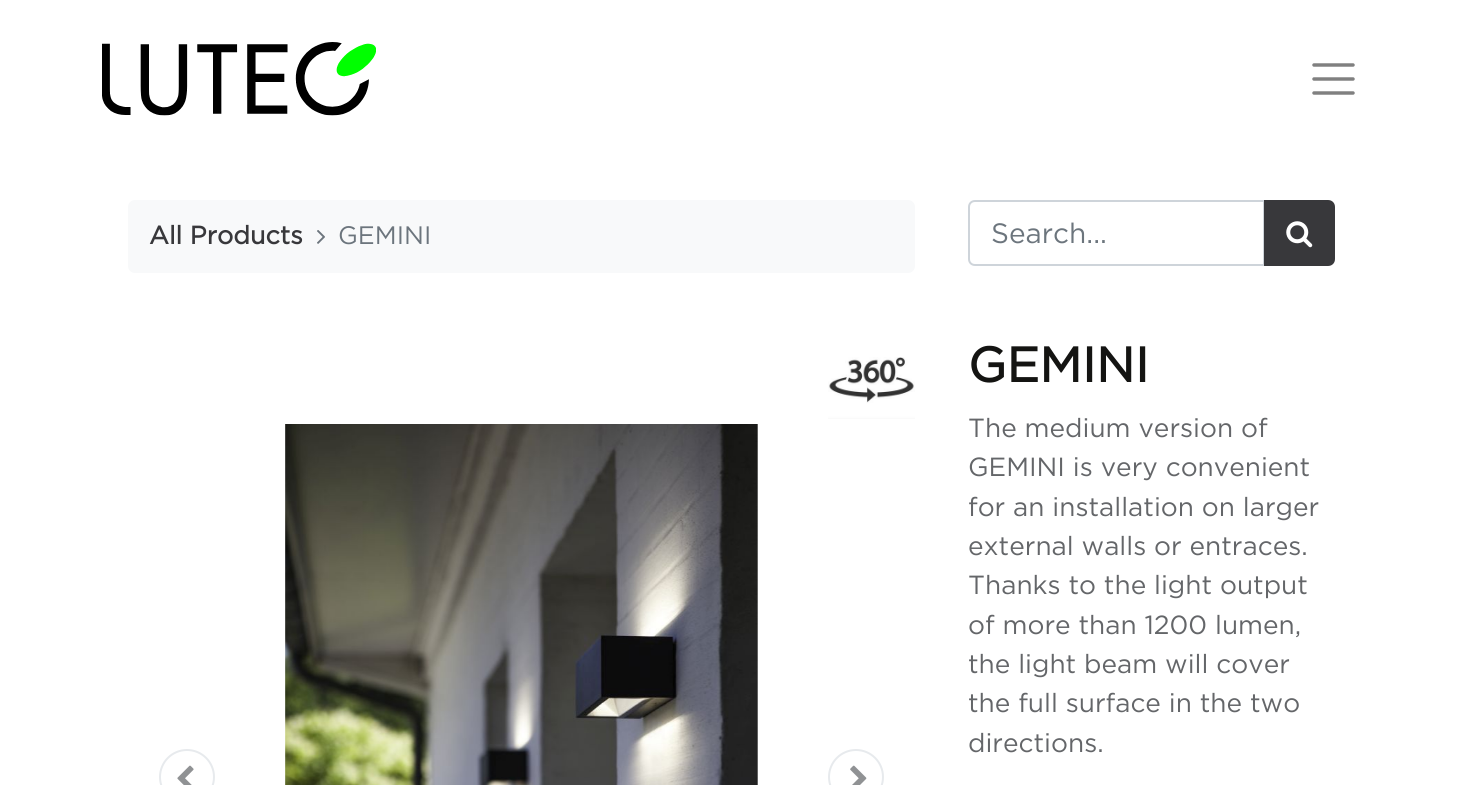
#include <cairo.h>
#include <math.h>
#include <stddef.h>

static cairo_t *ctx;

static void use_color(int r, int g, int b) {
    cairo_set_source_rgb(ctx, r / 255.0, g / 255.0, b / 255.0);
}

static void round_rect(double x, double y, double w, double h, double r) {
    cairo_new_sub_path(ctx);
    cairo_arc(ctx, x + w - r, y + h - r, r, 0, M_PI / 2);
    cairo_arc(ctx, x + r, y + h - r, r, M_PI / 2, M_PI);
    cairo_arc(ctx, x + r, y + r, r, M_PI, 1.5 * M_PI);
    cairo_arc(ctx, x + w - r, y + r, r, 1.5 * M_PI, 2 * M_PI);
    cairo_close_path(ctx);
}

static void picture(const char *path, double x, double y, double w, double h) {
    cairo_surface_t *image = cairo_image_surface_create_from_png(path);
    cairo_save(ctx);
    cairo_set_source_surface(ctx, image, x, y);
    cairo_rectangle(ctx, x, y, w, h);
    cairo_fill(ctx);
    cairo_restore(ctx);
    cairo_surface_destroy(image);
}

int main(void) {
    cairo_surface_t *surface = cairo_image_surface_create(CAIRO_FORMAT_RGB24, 1463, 785);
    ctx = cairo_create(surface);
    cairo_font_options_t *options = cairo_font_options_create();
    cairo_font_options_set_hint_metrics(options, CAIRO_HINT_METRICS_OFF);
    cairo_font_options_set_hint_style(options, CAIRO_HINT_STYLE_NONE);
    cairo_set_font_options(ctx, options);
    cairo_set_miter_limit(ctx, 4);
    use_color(255, 255, 255);
    cairo_paint(ctx);
    picture("img1.png", 102, 42, 274, 74);
    cairo_new_path(ctx);
    cairo_move_to(ctx, 1314, 65);
    cairo_line_to(ctx, 1353, 65);
    cairo_move_to(ctx, 1314, 79);
    cairo_line_to(ctx, 1353, 79);
    cairo_move_to(ctx, 1314, 93);
    cairo_line_to(ctx, 1353, 93);
    use_color(128, 128, 128);
    cairo_set_line_width(ctx, 3.5);
    cairo_set_line_cap(ctx, CAIRO_LINE_CAP_ROUND);
    cairo_stroke(ctx);
    use_color(248, 249, 250);
    round_rect(128, 200, 787, 73, 7);
    cairo_fill(ctx);
    cairo_select_font_face(ctx, "Gotham", CAIRO_FONT_SLANT_NORMAL, CAIRO_FONT_WEIGHT_BOLD);
    cairo_set_font_size(ctx, 25.25);
    use_color(56, 56, 59);
    cairo_move_to(ctx, 149, 244);
    cairo_show_text(ctx, "All Products");
    picture("img2.png", 317, 230, 8, 14);
    cairo_select_font_face(ctx, "Gotham", CAIRO_FONT_SLANT_NORMAL, CAIRO_FONT_WEIGHT_NORMAL);
    use_color(108, 117, 125);
    cairo_move_to(ctx, 338, 244);
    cairo_show_text(ctx, "GEMINI");
    cairo_new_path(ctx);
    cairo_move_to(ctx, 975, 201);
    cairo_line_to(ctx, 1264, 201);
    cairo_line_to(ctx, 1264, 265);
    cairo_line_to(ctx, 975, 265);
    cairo_curve_to(ctx, 971.5, 265, 969, 262.5, 969, 259);
    cairo_line_to(ctx, 969, 207);
    cairo_curve_to(ctx, 969, 203.5, 971.5, 201, 975, 201);
    cairo_close_path(ctx);
    use_color(206, 212, 218);
    cairo_set_line_width(ctx, 2);
    cairo_set_line_cap(ctx, CAIRO_LINE_CAP_BUTT);
    cairo_stroke(ctx);
    cairo_set_font_size(ctx, 28);
    use_color(108, 117, 125);
    cairo_move_to(ctx, 991, 243);
    cairo_show_text(ctx, "Search...");
    use_color(56, 56, 59);
    cairo_new_path(ctx);
    cairo_move_to(ctx, 1265, 201);
    cairo_line_to(ctx, 1328, 201);
    cairo_curve_to(ctx, 1331.5, 201, 1334, 203.5, 1334, 207);
    cairo_line_to(ctx, 1334, 259);
    cairo_curve_to(ctx, 1334, 262.5, 1331.5, 265, 1328, 265);
    cairo_line_to(ctx, 1265, 265);
    cairo_close_path(ctx);
    cairo_fill_preserve(ctx);
    cairo_stroke(ctx);
    picture("img3.png", 1286, 221, 27, 27);
    picture("img4.png", 828, 357, 87, 62);
    cairo_arc(ctx, 187, 777, 27, 0, 2 * M_PI);
    use_color(231, 234, 237);
    cairo_stroke(ctx);
    picture("img5.png", 177, 765, 17, 20);
    picture("img6.png", 285, 424, 473, 361);
    cairo_arc(ctx, 856, 777, 27, 0, 2 * M_PI);
    cairo_stroke(ctx);
    picture("img7.png", 850, 765, 17, 20);
    cairo_select_font_face(ctx, "Gotham", CAIRO_FONT_SLANT_NORMAL, CAIRO_FONT_WEIGHT_BOLD);
    cairo_set_font_size(ctx, 49);
    use_color(20, 20, 18);
    cairo_move_to(ctx, 968, 382);
    cairo_show_text(ctx, "GEMINI");
    cairo_select_font_face(ctx, "Gotham", CAIRO_FONT_SLANT_NORMAL, CAIRO_FONT_WEIGHT_NORMAL);
    cairo_set_font_size(ctx, 26.25);
    use_color(100, 102, 105);
    cairo_move_to(ctx, 968, 437);
    cairo_show_text(ctx, "The medium version of");
    cairo_move_to(ctx, 968, 476);
    cairo_show_text(ctx, "GEMINI is very convenient");
    cairo_move_to(ctx, 968, 516);
    cairo_show_text(ctx, "for an installation on larger");
    cairo_move_to(ctx, 968, 555);
    cairo_show_text(ctx, "external walls or entraces.");
    cairo_move_to(ctx, 968, 594);
    cairo_show_text(ctx, "Thanks to the light output");
    cairo_move_to(ctx, 968, 634);
    cairo_show_text(ctx, "of more than 1200 lumen,");
    cairo_move_to(ctx, 968, 673);
    cairo_show_text(ctx, "the light beam will cover");
    cairo_move_to(ctx, 968, 712);
    cairo_show_text(ctx, "the full surface in the two");
    cairo_move_to(ctx, 968, 752);
    cairo_show_text(ctx, "directions.");
    cairo_surface_write_to_png(surface, "result.png");
    cairo_font_options_destroy(options);
    cairo_destroy(ctx);
    cairo_surface_destroy(surface);
    return 0;
}
